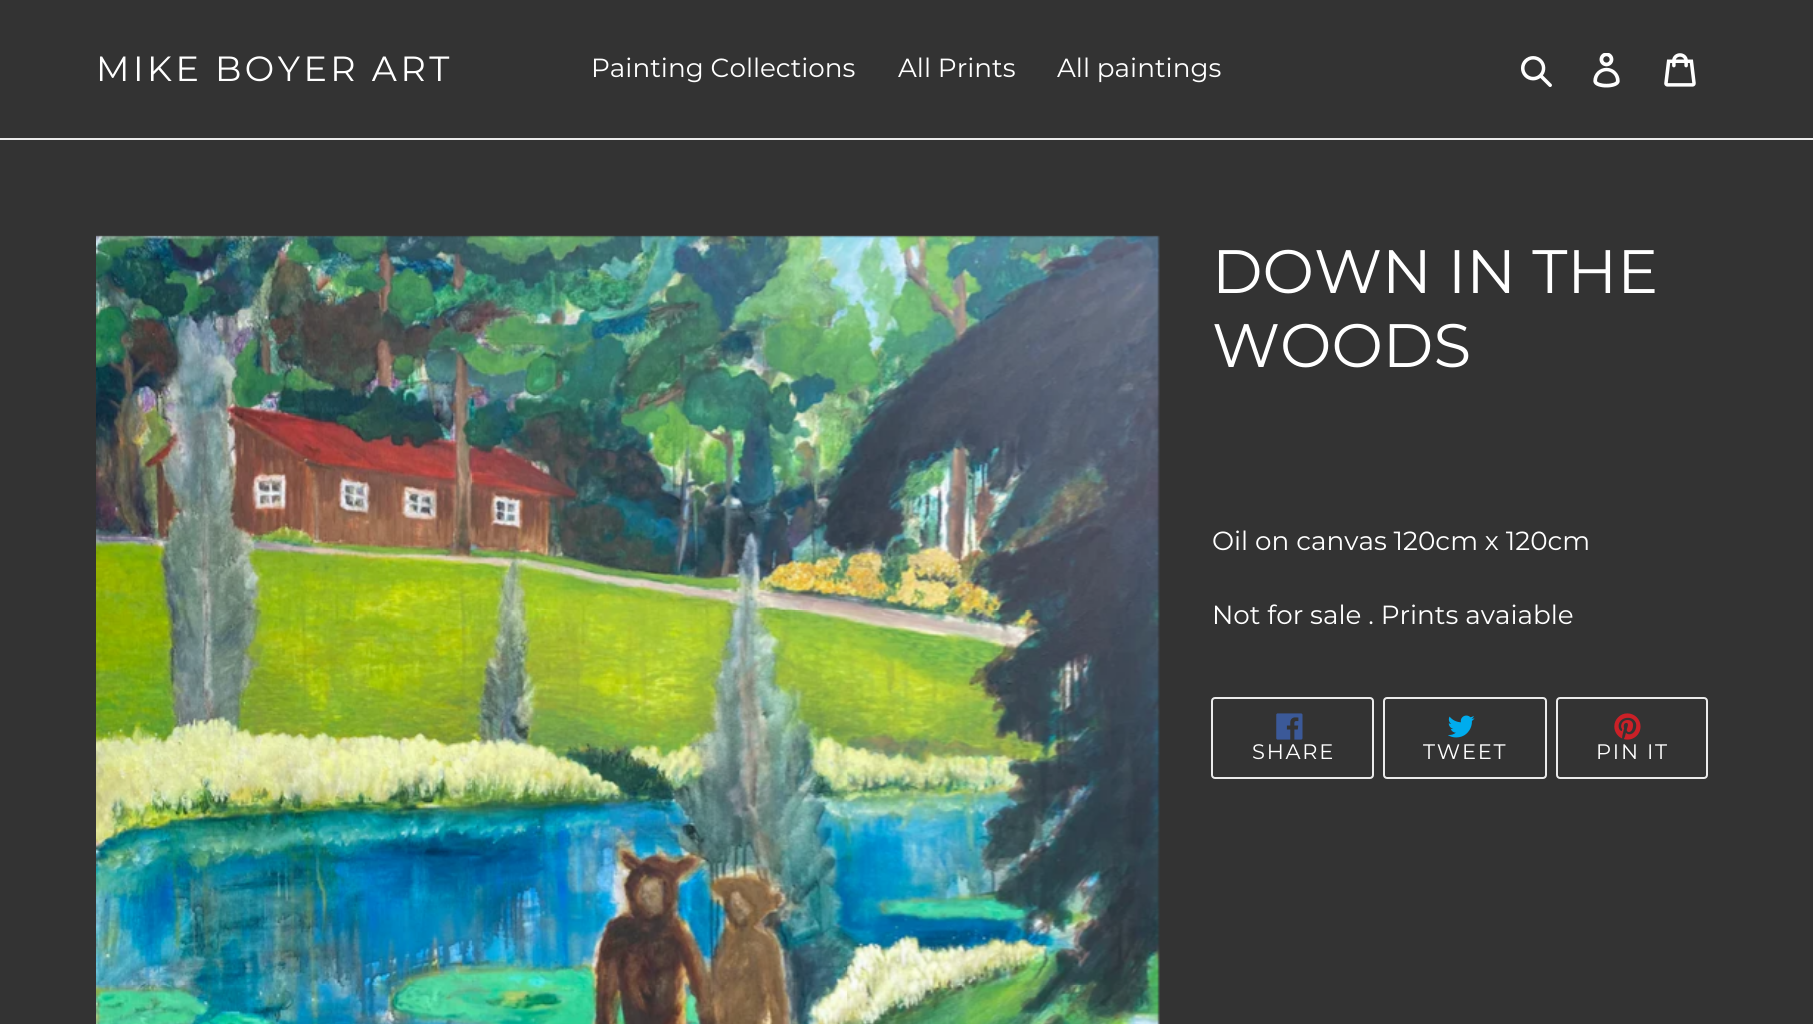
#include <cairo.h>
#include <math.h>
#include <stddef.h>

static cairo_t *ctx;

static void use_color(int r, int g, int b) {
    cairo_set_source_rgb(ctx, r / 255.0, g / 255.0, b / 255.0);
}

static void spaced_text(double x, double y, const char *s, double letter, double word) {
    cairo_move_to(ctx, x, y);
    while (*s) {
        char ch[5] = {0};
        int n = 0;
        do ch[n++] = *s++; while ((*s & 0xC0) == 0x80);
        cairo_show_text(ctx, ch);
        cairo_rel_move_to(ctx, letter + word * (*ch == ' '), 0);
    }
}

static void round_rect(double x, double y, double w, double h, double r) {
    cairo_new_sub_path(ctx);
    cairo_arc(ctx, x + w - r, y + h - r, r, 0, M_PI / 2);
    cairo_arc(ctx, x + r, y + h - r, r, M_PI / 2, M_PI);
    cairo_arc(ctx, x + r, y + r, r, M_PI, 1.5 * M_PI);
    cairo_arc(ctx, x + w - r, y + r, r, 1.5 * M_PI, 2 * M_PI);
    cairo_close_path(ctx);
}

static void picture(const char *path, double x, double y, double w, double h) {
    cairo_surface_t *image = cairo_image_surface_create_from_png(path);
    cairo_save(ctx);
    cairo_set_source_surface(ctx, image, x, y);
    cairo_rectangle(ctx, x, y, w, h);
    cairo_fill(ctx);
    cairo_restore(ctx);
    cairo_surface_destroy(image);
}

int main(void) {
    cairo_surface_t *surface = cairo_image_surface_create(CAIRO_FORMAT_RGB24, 1813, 1024);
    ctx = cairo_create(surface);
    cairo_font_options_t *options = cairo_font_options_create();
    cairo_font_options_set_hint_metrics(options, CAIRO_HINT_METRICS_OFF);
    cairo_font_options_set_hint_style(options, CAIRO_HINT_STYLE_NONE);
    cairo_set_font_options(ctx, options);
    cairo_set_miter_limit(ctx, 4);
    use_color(51, 51, 51);
    cairo_paint(ctx);
    use_color(235, 235, 235);
    cairo_rectangle(ctx, 0, 138, 1813, 2);
    cairo_fill(ctx);
    cairo_select_font_face(ctx, "Montserrat", CAIRO_FONT_SLANT_NORMAL, CAIRO_FONT_WEIGHT_NORMAL);
    cairo_set_font_size(ctx, 35);
    use_color(255, 255, 255);
    spaced_text(96, 81, "MIKE BOYER ART", 3.5, 0);
    cairo_set_font_size(ctx, 26.25);
    cairo_move_to(ctx, 591, 77);
    cairo_show_text(ctx, "Painting Collections");
    cairo_move_to(ctx, 898, 77);
    cairo_show_text(ctx, "All Prints");
    cairo_move_to(ctx, 1057, 77);
    cairo_show_text(ctx, "All paintings");
    picture("img1.png", 1521, 56, 31, 31);
    picture("img2.png", 1593, 53, 27, 35);
    picture("img3.png", 1664, 53, 32, 34);
    picture("img4.png", 96, 235, 1064, 789);
    cairo_set_font_size(ctx, 61.25);
    cairo_move_to(ctx, 1212, 293);
    cairo_show_text(ctx, "DOWN IN THE");
    cairo_move_to(ctx, 1212, 367);
    cairo_show_text(ctx, "WOODS");
    cairo_set_font_size(ctx, 26.25);
    cairo_move_to(ctx, 1212, 550);
    cairo_show_text(ctx, "Oil on canvas 120cm x 120cm");
    cairo_move_to(ctx, 1212, 624);
    cairo_show_text(ctx, "Not for sale . Prints avaiable");
    round_rect(1212, 698, 161, 80, 3);
    use_color(235, 235, 235);
    cairo_stroke(ctx);
    picture("img5.png", 1276, 713, 27, 27);
    cairo_set_font_size(ctx, 21);
    use_color(255, 255, 255);
    spaced_text(1252, 759, "SHARE", 1.75, 0);
    round_rect(1384, 698, 162, 80, 3);
    use_color(235, 235, 235);
    cairo_stroke(ctx);
    picture("img6.png", 1448, 715, 27, 23);
    use_color(255, 255, 255);
    spaced_text(1423, 759, "TWEET", 1.75, 0);
    round_rect(1557, 698, 150, 80, 3);
    use_color(235, 235, 235);
    cairo_stroke(ctx);
    picture("img7.png", 1614, 713, 27, 27);
    use_color(255, 255, 255);
    spaced_text(1596, 759, "PIN IT", 1.75, 0);
    cairo_surface_write_to_png(surface, "result.png");
    cairo_font_options_destroy(options);
    cairo_destroy(ctx);
    cairo_surface_destroy(surface);
    return 0;
}
